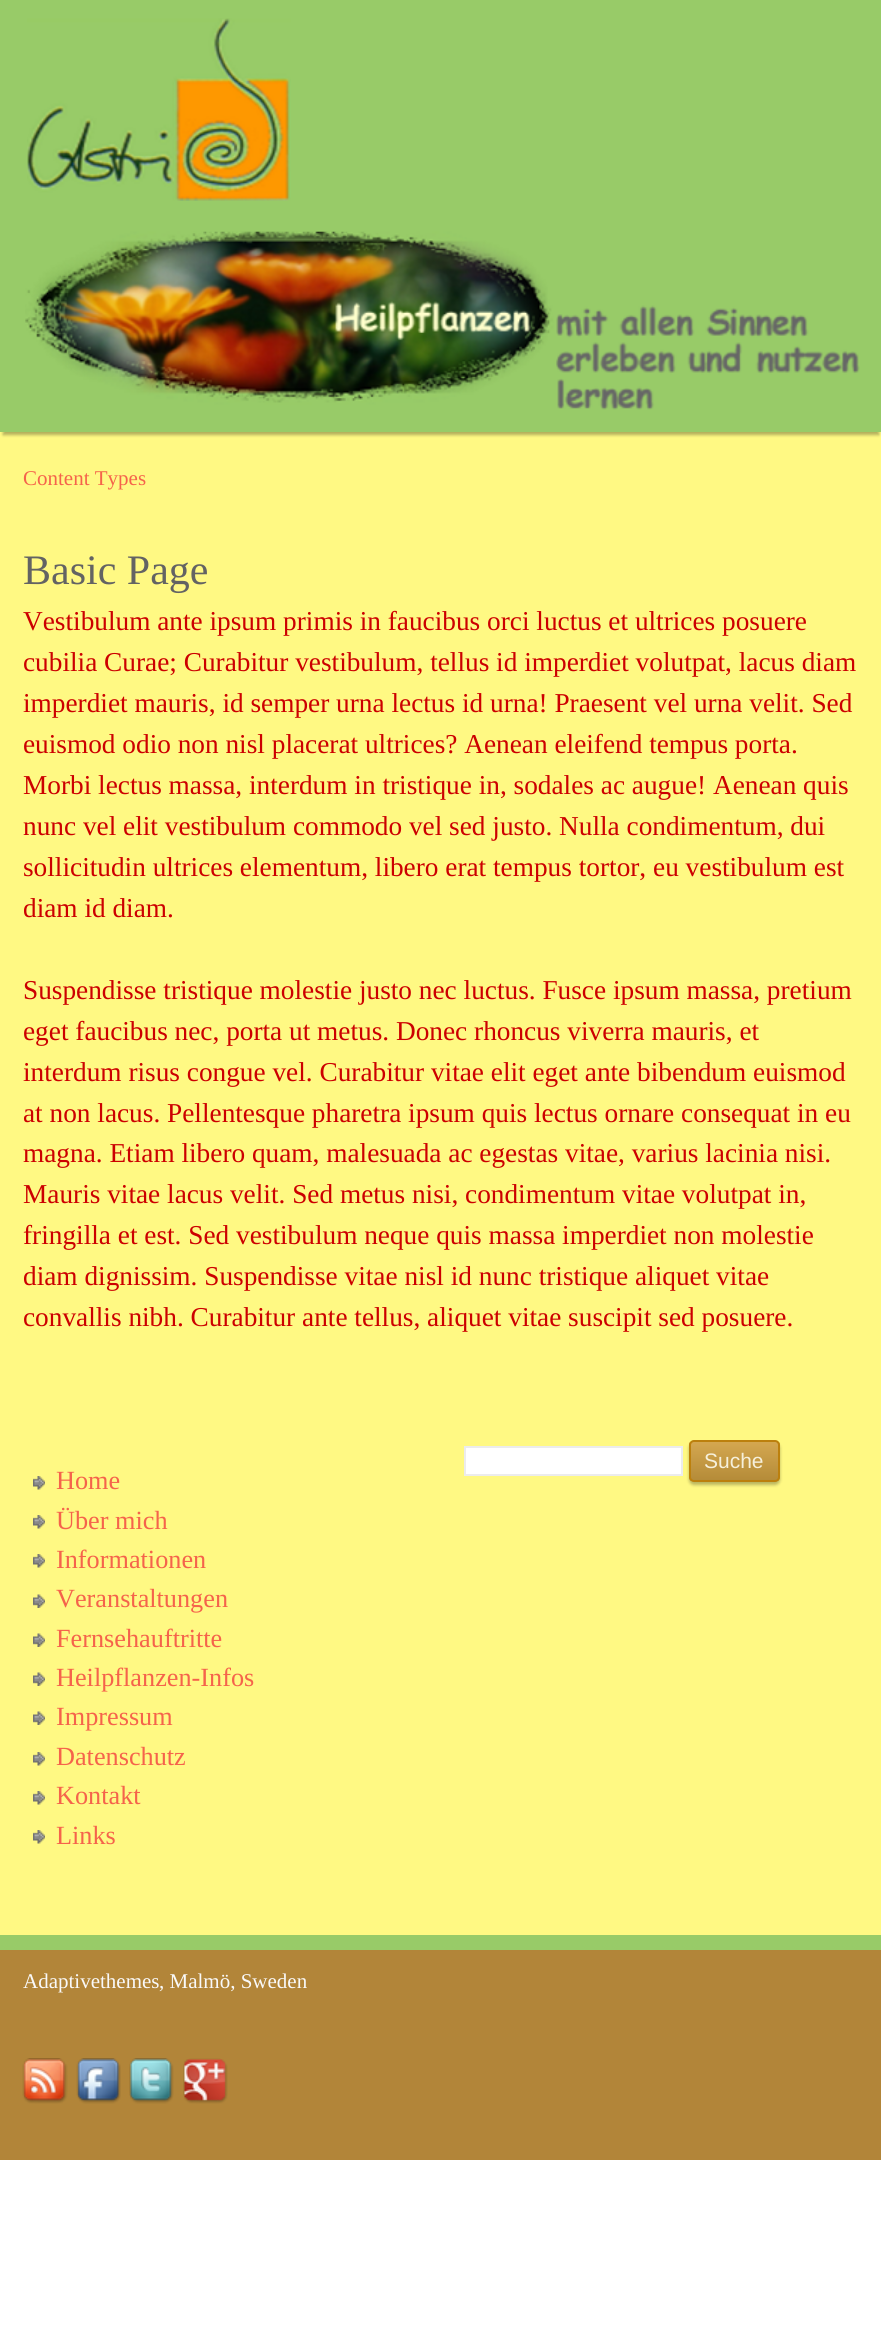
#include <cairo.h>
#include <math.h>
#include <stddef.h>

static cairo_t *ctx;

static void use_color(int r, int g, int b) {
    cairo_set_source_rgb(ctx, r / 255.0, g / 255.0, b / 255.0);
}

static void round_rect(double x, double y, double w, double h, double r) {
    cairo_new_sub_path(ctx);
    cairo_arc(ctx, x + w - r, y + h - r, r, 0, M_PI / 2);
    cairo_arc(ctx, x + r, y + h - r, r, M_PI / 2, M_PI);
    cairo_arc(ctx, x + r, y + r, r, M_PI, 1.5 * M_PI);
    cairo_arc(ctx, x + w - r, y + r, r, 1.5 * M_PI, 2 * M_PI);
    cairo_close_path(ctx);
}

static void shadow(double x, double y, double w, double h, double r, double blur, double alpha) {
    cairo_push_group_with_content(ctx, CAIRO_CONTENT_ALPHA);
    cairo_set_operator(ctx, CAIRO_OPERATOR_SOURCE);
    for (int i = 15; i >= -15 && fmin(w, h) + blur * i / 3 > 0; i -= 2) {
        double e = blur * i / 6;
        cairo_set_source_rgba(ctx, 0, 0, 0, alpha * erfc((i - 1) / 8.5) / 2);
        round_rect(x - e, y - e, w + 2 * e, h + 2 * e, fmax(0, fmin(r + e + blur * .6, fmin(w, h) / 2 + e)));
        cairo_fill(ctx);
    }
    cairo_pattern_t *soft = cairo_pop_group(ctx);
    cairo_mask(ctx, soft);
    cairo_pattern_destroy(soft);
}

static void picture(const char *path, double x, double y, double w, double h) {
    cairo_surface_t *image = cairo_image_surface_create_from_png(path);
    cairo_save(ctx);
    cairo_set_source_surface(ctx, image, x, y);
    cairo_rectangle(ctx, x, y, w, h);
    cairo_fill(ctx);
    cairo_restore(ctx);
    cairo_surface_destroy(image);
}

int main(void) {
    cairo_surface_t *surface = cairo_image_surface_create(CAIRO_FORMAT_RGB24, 881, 2345);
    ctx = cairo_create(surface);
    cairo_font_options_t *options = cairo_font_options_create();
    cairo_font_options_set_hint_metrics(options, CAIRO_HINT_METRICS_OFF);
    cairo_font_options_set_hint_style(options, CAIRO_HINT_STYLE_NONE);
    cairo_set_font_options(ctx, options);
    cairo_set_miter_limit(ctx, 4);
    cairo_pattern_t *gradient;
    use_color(255, 255, 255);
    cairo_paint(ctx);
    use_color(255, 249, 131);
    cairo_rectangle(ctx, 0, 432, 881, 1503);
    cairo_fill(ctx);
    use_color(0, 0, 0);
    shadow(3, 9, 876, 426, 0, 1.5, 0.3);
    use_color(152, 203, 104);
    cairo_rectangle(ctx, 0, 0, 881, 432);
    cairo_fill(ctx);
    picture("img1.png", 27, 18, 264, 183);
    picture("img2.png", 25, 231, 835, 179);
    cairo_select_font_face(ctx, "Liberation Serif", CAIRO_FONT_SLANT_NORMAL, CAIRO_FONT_WEIGHT_NORMAL);
    cairo_set_font_size(ctx, 21);
    use_color(245, 99, 75);
    cairo_move_to(ctx, 23, 485);
    cairo_show_text(ctx, "Content Types");
    cairo_set_font_size(ctx, 42);
    use_color(99, 99, 99);
    cairo_move_to(ctx, 23, 584);
    cairo_show_text(ctx, "Basic Page");
    cairo_set_font_size(ctx, 27.3);
    use_color(204, 0, 0);
    cairo_move_to(ctx, 23, 630);
    cairo_show_text(ctx, "Vestibulum ante ipsum primis in faucibus orci luctus et ultrices posuere");
    cairo_move_to(ctx, 23, 671);
    cairo_show_text(ctx, "cubilia Curae; Curabitur vestibulum, tellus id imperdiet volutpat, lacus diam");
    cairo_move_to(ctx, 23, 712);
    cairo_show_text(ctx, "imperdiet mauris, id semper urna lectus id urna! Praesent vel urna velit. Sed");
    cairo_move_to(ctx, 23, 753);
    cairo_show_text(ctx, "euismod odio non nisl placerat ultrices? Aenean eleifend tempus porta.");
    cairo_move_to(ctx, 23, 794);
    cairo_show_text(ctx, "Morbi lectus massa, interdum in tristique in, sodales ac augue! Aenean quis");
    cairo_move_to(ctx, 23, 835);
    cairo_show_text(ctx, "nunc vel elit vestibulum commodo vel sed justo. Nulla condimentum, dui");
    cairo_move_to(ctx, 23, 876);
    cairo_show_text(ctx, "sollicitudin ultrices elementum, libero erat tempus tortor, eu vestibulum est");
    cairo_move_to(ctx, 23, 917);
    cairo_show_text(ctx, "diam id diam.");
    cairo_move_to(ctx, 23, 999);
    cairo_show_text(ctx, "Suspendisse tristique molestie justo nec luctus. Fusce ipsum massa, pretium");
    cairo_move_to(ctx, 23, 1040);
    cairo_show_text(ctx, "eget faucibus nec, porta ut metus. Donec rhoncus viverra mauris, et");
    cairo_move_to(ctx, 23, 1081);
    cairo_show_text(ctx, "interdum risus congue vel. Curabitur vitae elit eget ante bibendum euismod");
    cairo_move_to(ctx, 23, 1122);
    cairo_show_text(ctx, "at non lacus. Pellentesque pharetra ipsum quis lectus ornare consequat in eu");
    cairo_move_to(ctx, 23, 1162);
    cairo_show_text(ctx, "magna. Etiam libero quam, malesuada ac egestas vitae, varius lacinia nisi.");
    cairo_move_to(ctx, 23, 1203);
    cairo_show_text(ctx, "Mauris vitae lacus velit. Sed metus nisi, condimentum vitae volutpat in,");
    cairo_move_to(ctx, 23, 1244);
    cairo_show_text(ctx, "fringilla et est. Sed vestibulum neque quis massa imperdiet non molestie");
    cairo_move_to(ctx, 23, 1285);
    cairo_show_text(ctx, "diam dignissim. Suspendisse vitae nisl id nunc tristique aliquet vitae");
    cairo_move_to(ctx, 23, 1326);
    cairo_show_text(ctx, "convallis nibh. Curabitur ante tellus, aliquet vitae suscipit sed posuere.");
    use_color(255, 255, 255);
    cairo_rectangle(ctx, 465, 1447, 217, 28);
    cairo_fill_preserve(ctx);
    use_color(236, 236, 236);
    cairo_stroke(ctx);
    use_color(26, 25, 13);
    shadow(689, 1443, 91, 42, 5, 1.5, 0.3);
    cairo_save(ctx);
    round_rect(689, 1440, 91, 42, 5);
    cairo_clip(ctx);
    gradient = cairo_pattern_create_linear(734, 1442, 734, 1481);
    cairo_pattern_add_color_stop_rgba(gradient, 0, 0.831, 0.655, 0.314, 1);
    cairo_pattern_add_color_stop_rgba(gradient, 1, 0.706, 0.545, 0.22, 1);
    cairo_set_source(ctx, gradient);
    cairo_pattern_destroy(gradient);
    cairo_rectangle(ctx, 689, 1442, 91, 39);
    cairo_fill(ctx);
    cairo_restore(ctx);
    round_rect(690, 1441, 89, 40, 4);
    use_color(188, 128, 13);
    cairo_stroke(ctx);
    cairo_select_font_face(ctx, "Liberation Sans", CAIRO_FONT_SLANT_NORMAL, CAIRO_FONT_WEIGHT_NORMAL);
    cairo_set_font_size(ctx, 21);
    use_color(246, 240, 219);
    cairo_move_to(ctx, 704, 1468);
    cairo_show_text(ctx, "Suche");
    picture("img3.png", 33, 1476, 12, 14);
    cairo_select_font_face(ctx, "Liberation Serif", CAIRO_FONT_SLANT_NORMAL, CAIRO_FONT_WEIGHT_NORMAL);
    cairo_set_font_size(ctx, 26.25);
    use_color(245, 99, 75);
    cairo_move_to(ctx, 56, 1489);
    cairo_show_text(ctx, "Home");
    picture("img3.png", 33, 1515, 12, 14);
    cairo_move_to(ctx, 56, 1529);
    cairo_show_text(ctx, "Über mich");
    picture("img3.png", 33, 1554, 12, 14);
    cairo_move_to(ctx, 56, 1568);
    cairo_show_text(ctx, "Informationen");
    picture("img4.png", 33, 1594, 12, 14);
    cairo_move_to(ctx, 56, 1607);
    cairo_show_text(ctx, "Veranstaltungen");
    picture("img4.png", 33, 1633, 12, 14);
    cairo_move_to(ctx, 56, 1647);
    cairo_show_text(ctx, "Fernsehauftritte");
    picture("img4.png", 33, 1672, 12, 14);
    cairo_move_to(ctx, 56, 1686);
    cairo_show_text(ctx, "Heilpflanzen-Infos");
    picture("img4.png", 33, 1711, 12, 14);
    cairo_move_to(ctx, 56, 1725);
    cairo_show_text(ctx, "Impressum");
    picture("img3.png", 33, 1752, 12, 14);
    cairo_move_to(ctx, 56, 1765);
    cairo_show_text(ctx, "Datenschutz");
    picture("img3.png", 33, 1791, 12, 14);
    cairo_move_to(ctx, 56, 1804);
    cairo_show_text(ctx, "Kontakt");
    picture("img3.png", 33, 1830, 12, 14);
    cairo_move_to(ctx, 56, 1844);
    cairo_show_text(ctx, "Links");
    use_color(178, 133, 57);
    cairo_rectangle(ctx, 0, 1950, 881, 210);
    cairo_fill(ctx);
    use_color(152, 203, 104);
    cairo_rectangle(ctx, 0, 1935, 881, 15);
    cairo_fill(ctx);
    cairo_set_font_size(ctx, 21);
    use_color(249, 249, 249);
    cairo_move_to(ctx, 23, 1988);
    cairo_show_text(ctx, "Adaptivethemes");
    cairo_move_to(ctx, 159, 1988);
    cairo_show_text(ctx, ", Malmö, Sweden");
    picture("img5.png", 22, 2058, 46, 46);
    picture("img6.png", 76, 2058, 45, 46);
    picture("img7.png", 129, 2058, 45, 46);
    picture("img8.png", 183, 2058, 45, 46);
    cairo_surface_write_to_png(surface, "result.png");
    cairo_font_options_destroy(options);
    cairo_destroy(ctx);
    cairo_surface_destroy(surface);
    return 0;
}
